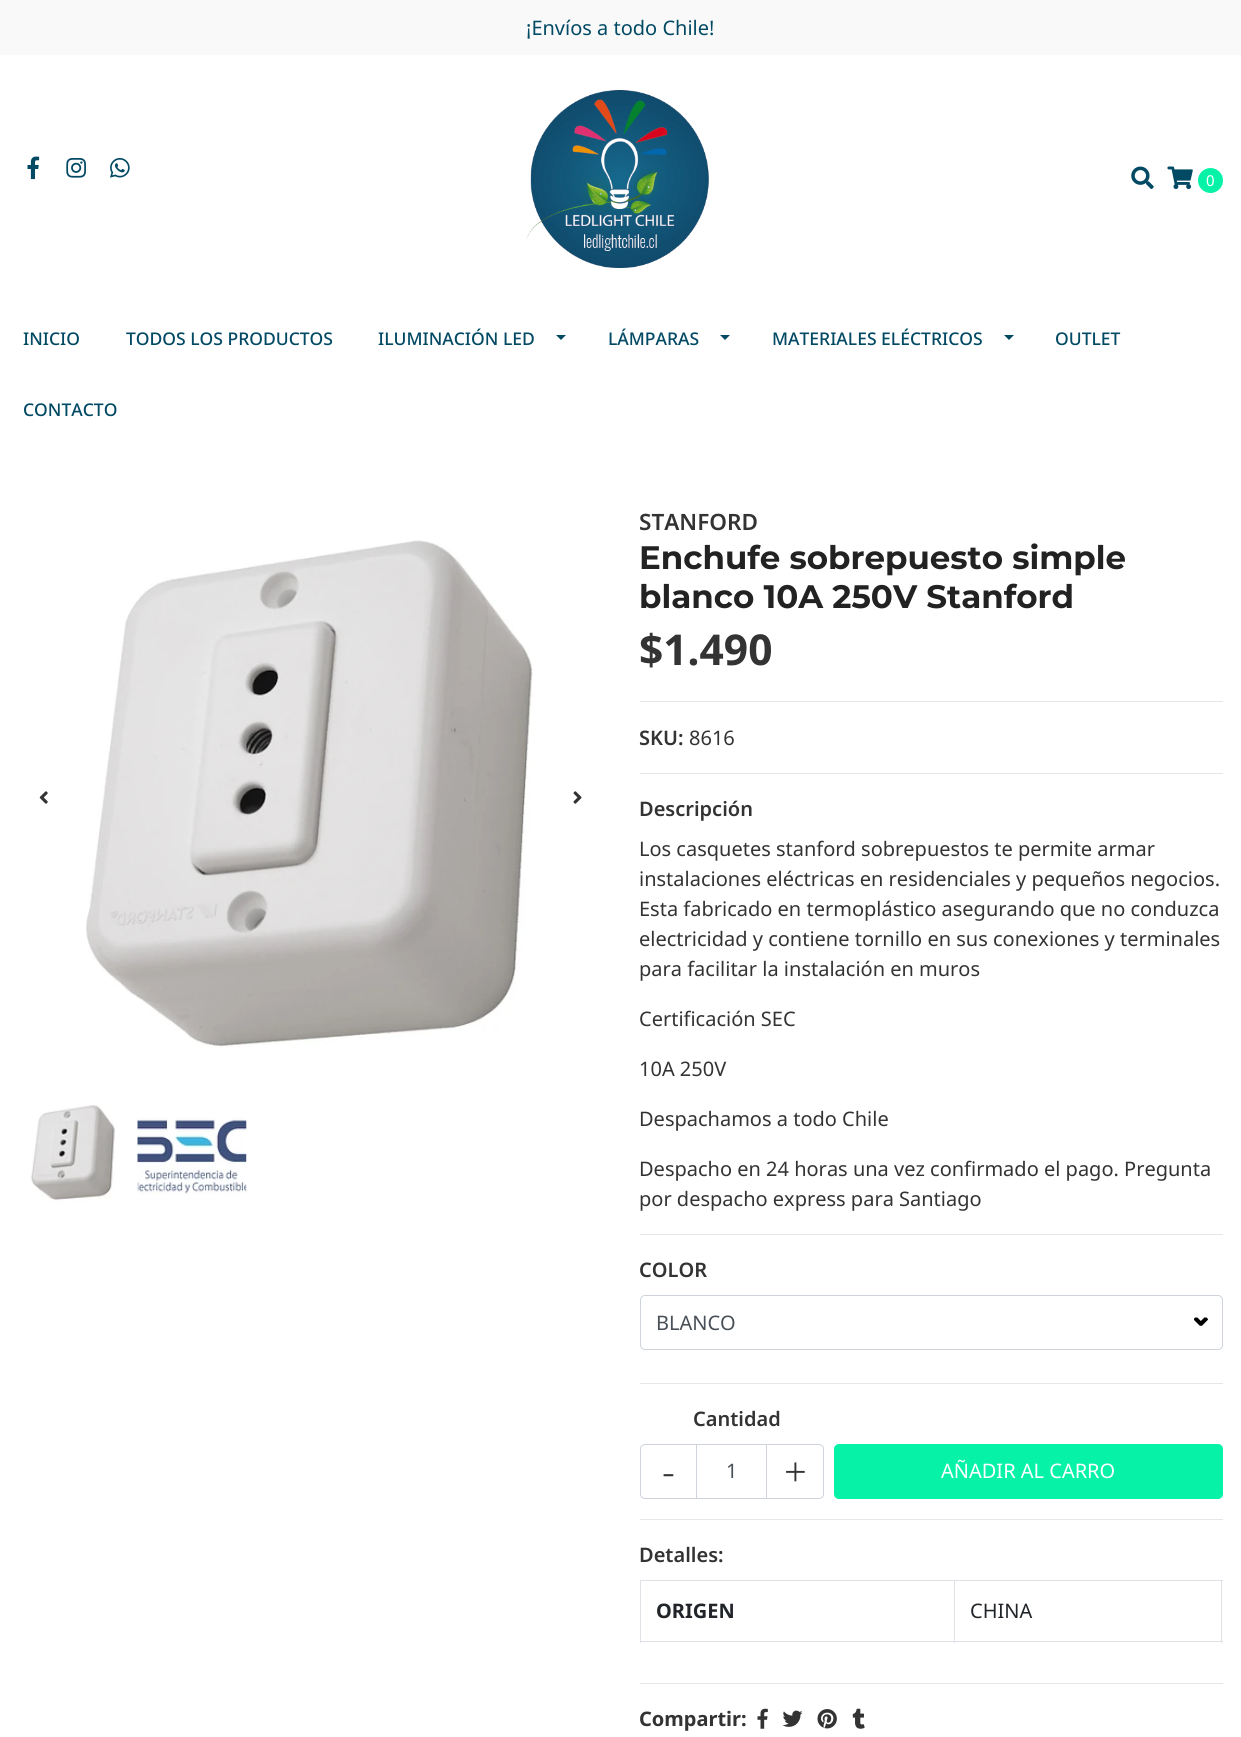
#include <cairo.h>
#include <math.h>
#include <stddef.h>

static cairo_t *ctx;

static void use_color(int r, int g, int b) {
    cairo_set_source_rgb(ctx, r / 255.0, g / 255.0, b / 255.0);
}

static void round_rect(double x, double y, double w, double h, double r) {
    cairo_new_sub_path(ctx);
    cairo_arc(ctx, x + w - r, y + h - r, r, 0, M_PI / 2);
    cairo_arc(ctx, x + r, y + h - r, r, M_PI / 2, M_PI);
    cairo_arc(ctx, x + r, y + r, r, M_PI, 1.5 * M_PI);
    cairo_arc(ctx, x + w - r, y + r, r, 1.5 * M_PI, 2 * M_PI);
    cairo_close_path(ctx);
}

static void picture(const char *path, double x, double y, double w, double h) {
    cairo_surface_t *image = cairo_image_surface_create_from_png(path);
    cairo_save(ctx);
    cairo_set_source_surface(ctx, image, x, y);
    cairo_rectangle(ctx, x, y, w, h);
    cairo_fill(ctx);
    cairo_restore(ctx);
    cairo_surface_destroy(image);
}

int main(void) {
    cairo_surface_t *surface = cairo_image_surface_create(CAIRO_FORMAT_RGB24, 1241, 1737);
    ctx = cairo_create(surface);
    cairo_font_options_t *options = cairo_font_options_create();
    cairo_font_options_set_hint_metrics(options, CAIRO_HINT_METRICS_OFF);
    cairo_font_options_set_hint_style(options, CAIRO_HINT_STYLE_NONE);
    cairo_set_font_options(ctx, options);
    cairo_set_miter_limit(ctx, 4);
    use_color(255, 255, 255);
    cairo_paint(ctx);
    use_color(249, 249, 249);
    cairo_rectangle(ctx, 0, 0, 1241, 55);
    cairo_fill(ctx);
    cairo_select_font_face(ctx, "Noto Sans", CAIRO_FONT_SLANT_NORMAL, CAIRO_FONT_WEIGHT_NORMAL);
    cairo_set_font_size(ctx, 20);
    use_color(2, 73, 100);
    cairo_move_to(ctx, 526, 35);
    cairo_show_text(ctx, "¡Envíos a todo Chile!");
    picture("img1.png", 27, 156, 13, 24);
    picture("img2.png", 66, 158, 20, 20);
    picture("img3.png", 110, 158, 20, 20);
    picture("img4.png", 526, 90, 183, 178);
    picture("img5.png", 1131, 166, 23, 23);
    picture("img6.png", 1167, 166, 26, 23);
    use_color(5, 242, 167);
    cairo_arc(ctx, 1210.5, 180.5, 12.5, 0, 2 * M_PI);
    cairo_fill(ctx);
    cairo_set_font_size(ctx, 15);
    use_color(255, 255, 255);
    cairo_move_to(ctx, 1206, 186);
    cairo_show_text(ctx, "0");
    cairo_select_font_face(ctx, "Noto Sans Medium", CAIRO_FONT_SLANT_NORMAL, CAIRO_FONT_WEIGHT_NORMAL);
    cairo_set_font_size(ctx, 17.5);
    use_color(2, 73, 100);
    cairo_move_to(ctx, 23, 345);
    cairo_show_text(ctx, "INICIO");
    cairo_move_to(ctx, 126, 345);
    cairo_show_text(ctx, "TODOS LOS PRODUCTOS");
    cairo_move_to(ctx, 378, 345);
    cairo_show_text(ctx, "ILUMINACIÓN LED");
    cairo_new_path(ctx);
    cairo_move_to(ctx, 556, 335);
    cairo_line_to(ctx, 566, 335);
    cairo_line_to(ctx, 561, 340);
    cairo_close_path(ctx);
    cairo_fill(ctx);
    cairo_move_to(ctx, 608, 345);
    cairo_show_text(ctx, "LÁMPARAS");
    cairo_new_path(ctx);
    cairo_move_to(ctx, 720, 335);
    cairo_line_to(ctx, 730, 335);
    cairo_line_to(ctx, 725, 340);
    cairo_close_path(ctx);
    cairo_fill(ctx);
    cairo_move_to(ctx, 772, 345);
    cairo_show_text(ctx, "MATERIALES ELÉCTRICOS");
    cairo_new_path(ctx);
    cairo_move_to(ctx, 1004, 335);
    cairo_line_to(ctx, 1014, 335);
    cairo_line_to(ctx, 1009, 340);
    cairo_close_path(ctx);
    cairo_fill(ctx);
    cairo_move_to(ctx, 1055, 345);
    cairo_show_text(ctx, "OUTLET");
    cairo_move_to(ctx, 23, 416);
    cairo_show_text(ctx, "CONTACTO");
    picture("img7.png", 86, 540, 447, 509);
    picture("img8.png", 39, 791, 9, 13);
    picture("img9.png", 573, 791, 9, 13);
    picture("img10.png", 30, 1105, 85, 98);
    picture("img11.png", 137, 1118, 110, 77);
    use_color(230, 230, 230);
    cairo_rectangle(ctx, 640, 701, 583, 1);
    cairo_fill(ctx);
    cairo_select_font_face(ctx, "Noto Sans SemiBold", CAIRO_FONT_SLANT_NORMAL, CAIRO_FONT_WEIGHT_NORMAL);
    cairo_set_font_size(ctx, 22.5);
    use_color(51, 51, 51);
    cairo_move_to(ctx, 639, 530);
    cairo_show_text(ctx, "STANFORD");
    cairo_select_font_face(ctx, "Montserrat", CAIRO_FONT_SLANT_NORMAL, CAIRO_FONT_WEIGHT_BOLD);
    cairo_set_font_size(ctx, 32.5);
    use_color(34, 34, 34);
    cairo_move_to(ctx, 639, 569);
    cairo_show_text(ctx, "Enchufe sobrepuesto simple");
    cairo_move_to(ctx, 639, 608);
    cairo_show_text(ctx, "blanco 10A 250V Stanford");
    cairo_select_font_face(ctx, "Noto Sans", CAIRO_FONT_SLANT_NORMAL, CAIRO_FONT_WEIGHT_BOLD);
    cairo_set_font_size(ctx, 42.5);
    use_color(51, 51, 51);
    cairo_move_to(ctx, 639, 665);
    cairo_show_text(ctx, "$1.490");
    use_color(230, 230, 230);
    cairo_rectangle(ctx, 640, 773, 583, 1);
    cairo_fill(ctx);
    cairo_select_font_face(ctx, "Noto Sans SemiBold", CAIRO_FONT_SLANT_NORMAL, CAIRO_FONT_WEIGHT_NORMAL);
    cairo_set_font_size(ctx, 20);
    use_color(51, 51, 51);
    cairo_move_to(ctx, 639, 745);
    cairo_show_text(ctx, "SKU:");
    cairo_select_font_face(ctx, "Noto Sans", CAIRO_FONT_SLANT_NORMAL, CAIRO_FONT_WEIGHT_NORMAL);
    cairo_move_to(ctx, 689, 745);
    cairo_show_text(ctx, "8616");
    use_color(230, 230, 230);
    cairo_rectangle(ctx, 640, 1234, 583, 1);
    cairo_fill(ctx);
    cairo_select_font_face(ctx, "Noto Sans SemiBold", CAIRO_FONT_SLANT_NORMAL, CAIRO_FONT_WEIGHT_NORMAL);
    use_color(51, 51, 51);
    cairo_move_to(ctx, 639, 816);
    cairo_show_text(ctx, "Descripción");
    cairo_select_font_face(ctx, "Noto Sans", CAIRO_FONT_SLANT_NORMAL, CAIRO_FONT_WEIGHT_NORMAL);
    cairo_move_to(ctx, 639, 856);
    cairo_show_text(ctx, "Los casquetes stanford sobrepuestos te permite armar");
    cairo_move_to(ctx, 639, 886);
    cairo_show_text(ctx, "instalaciones eléctricas en residenciales y pequeños negocios.");
    cairo_move_to(ctx, 639, 916);
    cairo_show_text(ctx, "Esta fabricado en termoplástico asegurando que no conduzca");
    cairo_move_to(ctx, 639, 946);
    cairo_show_text(ctx, "electricidad y contiene tornillo en sus conexiones y terminales");
    cairo_move_to(ctx, 639, 976);
    cairo_show_text(ctx, "para facilitar la instalación en muros");
    cairo_move_to(ctx, 639, 1026);
    cairo_show_text(ctx, "Certificación SEC");
    cairo_move_to(ctx, 639, 1076);
    cairo_show_text(ctx, "10A 250V");
    cairo_move_to(ctx, 639, 1126);
    cairo_show_text(ctx, "Despachamos a todo Chile");
    cairo_move_to(ctx, 639, 1176);
    cairo_show_text(ctx, "Despacho en 24 horas una vez confirmado el pago. Pregunta");
    cairo_move_to(ctx, 639, 1206);
    cairo_show_text(ctx, "por despacho express para Santiago");
    use_color(230, 230, 230);
    cairo_rectangle(ctx, 640, 1383, 583, 1);
    cairo_fill(ctx);
    cairo_select_font_face(ctx, "Noto Sans SemiBold", CAIRO_FONT_SLANT_NORMAL, CAIRO_FONT_WEIGHT_NORMAL);
    use_color(51, 51, 51);
    cairo_move_to(ctx, 639, 1277);
    cairo_show_text(ctx, "COLOR");
    picture("img12.png", 1196, 1317, 12, 9);
    picture("img13.png", 1194, 1317, 12, 9);
    round_rect(640.5, 1295.5, 582, 54, 4.5);
    use_color(206, 212, 218);
    cairo_set_line_width(ctx, 1);
    cairo_stroke(ctx);
    cairo_select_font_face(ctx, "Noto Sans", CAIRO_FONT_SLANT_NORMAL, CAIRO_FONT_WEIGHT_NORMAL);
    use_color(73, 80, 87);
    cairo_move_to(ctx, 656, 1330);
    cairo_show_text(ctx, "BLANCO");
    use_color(230, 230, 230);
    cairo_rectangle(ctx, 640, 1519, 583, 1);
    cairo_fill(ctx);
    cairo_select_font_face(ctx, "Noto Sans SemiBold", CAIRO_FONT_SLANT_NORMAL, CAIRO_FONT_WEIGHT_NORMAL);
    use_color(51, 51, 51);
    cairo_move_to(ctx, 693, 1426);
    cairo_show_text(ctx, "Cantidad");
    round_rect(640.5, 1444.5, 183, 54, 4.5);
    use_color(206, 212, 218);
    cairo_stroke(ctx);
    cairo_rectangle(ctx, 696, 1445, 1, 53);
    cairo_fill(ctx);
    cairo_select_font_face(ctx, "Noto Sans Light", CAIRO_FONT_SLANT_NORMAL, CAIRO_FONT_WEIGHT_NORMAL);
    cairo_set_font_size(ctx, 40);
    use_color(51, 51, 51);
    cairo_move_to(ctx, 662, 1486);
    cairo_show_text(ctx, "-");
    use_color(206, 212, 218);
    cairo_rectangle(ctx, 766, 1445, 1, 53);
    cairo_fill(ctx);
    use_color(51, 51, 51);
    cairo_move_to(ctx, 784, 1486);
    cairo_show_text(ctx, "+");
    cairo_select_font_face(ctx, "Noto Sans", CAIRO_FONT_SLANT_NORMAL, CAIRO_FONT_WEIGHT_NORMAL);
    cairo_set_font_size(ctx, 20);
    use_color(73, 80, 87);
    cairo_move_to(ctx, 726, 1478);
    cairo_show_text(ctx, "1");
    use_color(5, 242, 167);
    round_rect(834, 1444, 389, 55, 5);
    cairo_fill(ctx);
    use_color(255, 255, 255);
    cairo_move_to(ctx, 941, 1478);
    cairo_show_text(ctx, "AÑADIR AL CARRO");
    use_color(230, 230, 230);
    cairo_rectangle(ctx, 640, 1683, 583, 1);
    cairo_fill(ctx);
    cairo_select_font_face(ctx, "Noto Sans SemiBold", CAIRO_FONT_SLANT_NORMAL, CAIRO_FONT_WEIGHT_NORMAL);
    use_color(51, 51, 51);
    cairo_move_to(ctx, 639, 1562);
    cairo_show_text(ctx, "Detalles:");
    use_color(222, 226, 230);
    cairo_rectangle(ctx, 640, 1580, 583, 1);
    cairo_fill(ctx);
    cairo_rectangle(ctx, 1221, 1580, 1, 63);
    cairo_fill(ctx);
    cairo_rectangle(ctx, 640, 1641, 583, 1);
    cairo_fill(ctx);
    cairo_rectangle(ctx, 640, 1580, 1, 63);
    cairo_fill(ctx);
    cairo_select_font_face(ctx, "Noto Sans", CAIRO_FONT_SLANT_NORMAL, CAIRO_FONT_WEIGHT_BOLD);
    use_color(33, 37, 41);
    cairo_move_to(ctx, 656, 1618);
    cairo_show_text(ctx, "ORIGEN");
    use_color(222, 226, 230);
    cairo_rectangle(ctx, 954, 1580, 1, 63);
    cairo_fill(ctx);
    cairo_select_font_face(ctx, "Noto Sans", CAIRO_FONT_SLANT_NORMAL, CAIRO_FONT_WEIGHT_NORMAL);
    use_color(33, 37, 41);
    cairo_move_to(ctx, 970, 1618);
    cairo_show_text(ctx, "CHINA");
    cairo_select_font_face(ctx, "Noto Sans", CAIRO_FONT_SLANT_NORMAL, CAIRO_FONT_WEIGHT_BOLD);
    use_color(51, 51, 51);
    cairo_move_to(ctx, 639, 1726);
    cairo_show_text(ctx, "Compartir:");
    picture("img14.png", 757, 1708, 11, 21);
    picture("img15.png", 782, 1710, 21, 17);
    picture("img16.png", 817, 1709, 20, 20);
    picture("img17.png", 852, 1708, 13, 21);
    cairo_surface_write_to_png(surface, "result.png");
    cairo_font_options_destroy(options);
    cairo_destroy(ctx);
    cairo_surface_destroy(surface);
    return 0;
}
